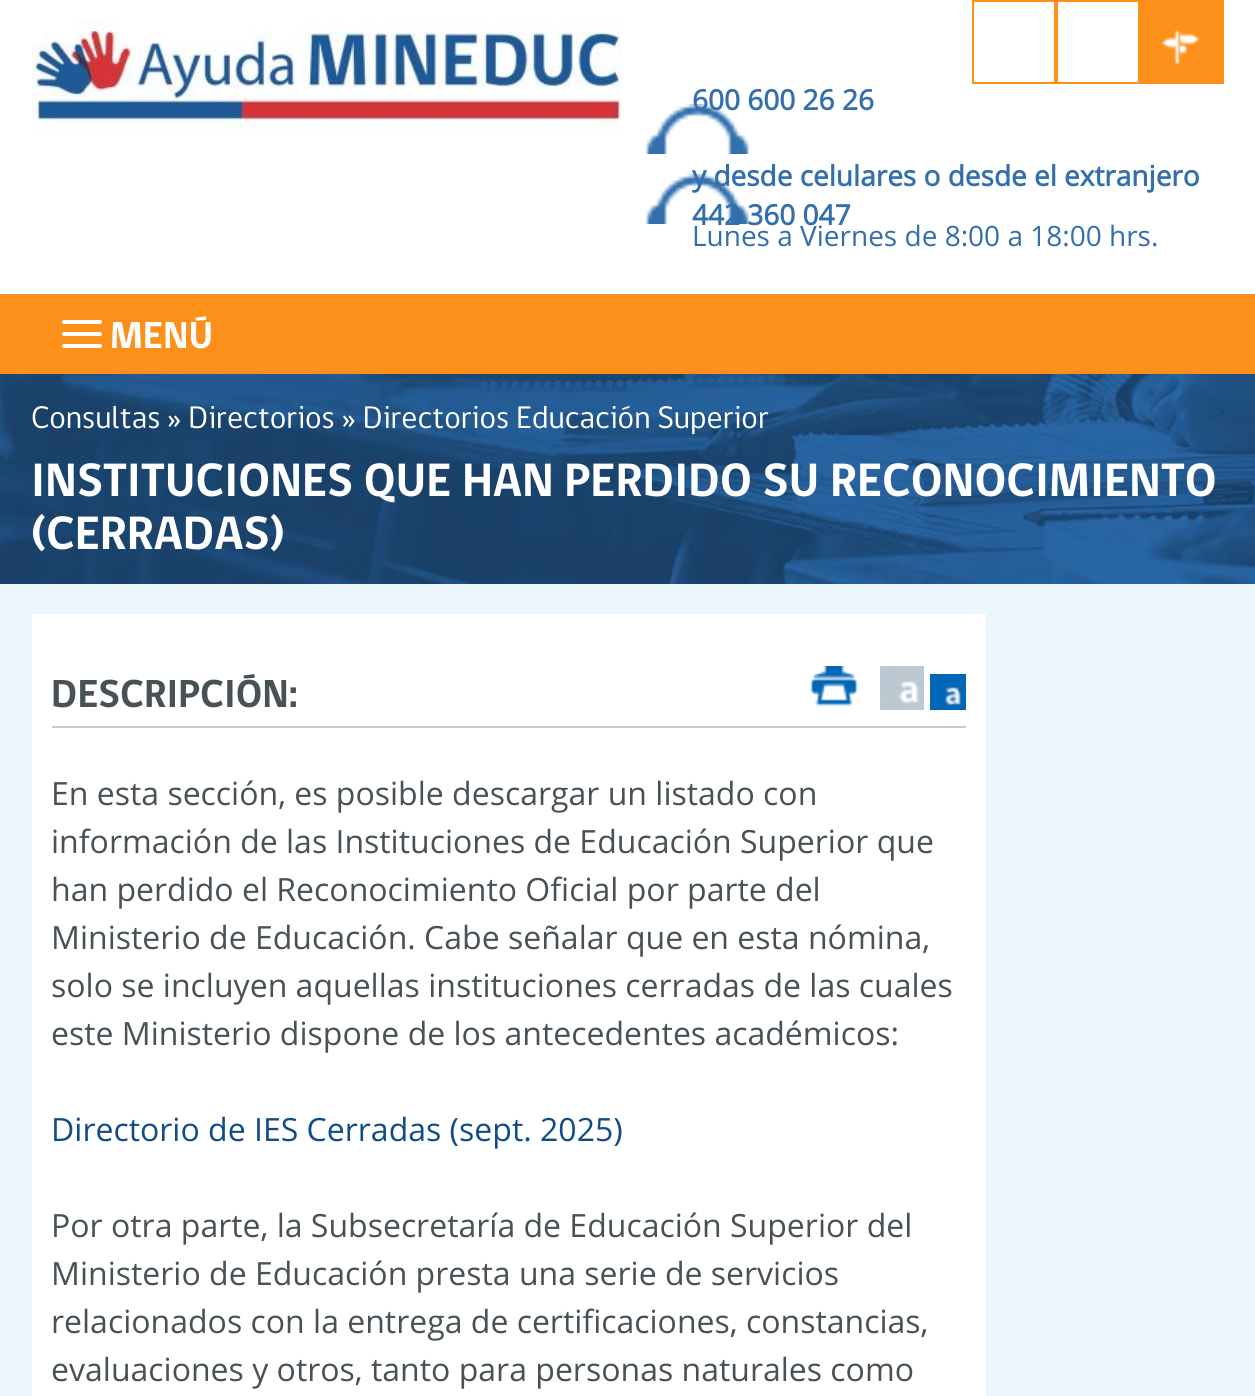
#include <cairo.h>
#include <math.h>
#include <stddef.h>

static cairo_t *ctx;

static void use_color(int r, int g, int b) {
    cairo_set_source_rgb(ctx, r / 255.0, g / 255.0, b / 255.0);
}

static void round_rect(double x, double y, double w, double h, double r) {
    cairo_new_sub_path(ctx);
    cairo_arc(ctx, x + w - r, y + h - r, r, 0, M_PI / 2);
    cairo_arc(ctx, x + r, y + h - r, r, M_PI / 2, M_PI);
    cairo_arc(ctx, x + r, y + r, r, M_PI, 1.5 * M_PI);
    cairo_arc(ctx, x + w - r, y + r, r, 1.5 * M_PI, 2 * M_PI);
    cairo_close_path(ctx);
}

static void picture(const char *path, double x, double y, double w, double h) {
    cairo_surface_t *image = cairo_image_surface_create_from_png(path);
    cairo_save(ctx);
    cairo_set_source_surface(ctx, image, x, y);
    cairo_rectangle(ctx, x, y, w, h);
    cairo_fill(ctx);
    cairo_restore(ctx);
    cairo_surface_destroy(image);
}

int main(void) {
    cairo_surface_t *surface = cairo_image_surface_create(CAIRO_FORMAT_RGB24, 1255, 1396);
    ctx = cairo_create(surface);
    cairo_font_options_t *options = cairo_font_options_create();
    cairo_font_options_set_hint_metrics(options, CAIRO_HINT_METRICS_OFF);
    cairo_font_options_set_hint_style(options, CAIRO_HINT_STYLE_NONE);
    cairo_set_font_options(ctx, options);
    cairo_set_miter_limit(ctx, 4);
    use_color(255, 255, 255);
    cairo_paint(ctx);
    picture("img1.png", 32, 21, 590, 110);
    cairo_rectangle(ctx, 973, 1, 82, 82);
    use_color(253, 144, 27);
    cairo_stroke(ctx);
    cairo_rectangle(ctx, 1057, 1, 82, 82);
    cairo_stroke(ctx);
    cairo_rectangle(ctx, 1140, 0, 84, 84);
    cairo_fill(ctx);
    picture("img2.png", 1161, 29, 39, 36);
    picture("img3.png", 644, 104, 105, 50);
    cairo_select_font_face(ctx, "Open Sans", CAIRO_FONT_SLANT_NORMAL, CAIRO_FONT_WEIGHT_BOLD);
    cairo_set_font_size(ctx, 28);
    use_color(51, 111, 172);
    cairo_move_to(ctx, 692, 110);
    cairo_show_text(ctx, "600 600 26 26");
    picture("img3.png", 644, 174, 105, 50);
    cairo_move_to(ctx, 692, 186);
    cairo_show_text(ctx, "y desde celulares o desde el extranjero");
    cairo_move_to(ctx, 692, 225);
    cairo_show_text(ctx, "442 360 047");
    cairo_select_font_face(ctx, "Open Sans", CAIRO_FONT_SLANT_NORMAL, CAIRO_FONT_WEIGHT_NORMAL);
    cairo_move_to(ctx, 692, 246);
    cairo_show_text(ctx, "Lunes a Viernes de 8:00 a 18:00 hrs.");
    use_color(253, 144, 27);
    cairo_rectangle(ctx, 0, 294, 1255, 80);
    cairo_fill(ctx);
    use_color(255, 255, 255);
    round_rect(62, 332, 40, 4, 2);
    cairo_fill(ctx);
    round_rect(62, 320, 40, 4, 2);
    cairo_fill(ctx);
    round_rect(62, 344, 40, 4, 2);
    cairo_fill(ctx);
    cairo_select_font_face(ctx, "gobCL", CAIRO_FONT_SLANT_NORMAL, CAIRO_FONT_WEIGHT_BOLD);
    cairo_set_font_size(ctx, 38.5);
    cairo_move_to(ctx, 110, 348);
    cairo_show_text(ctx, "MENÚ");
    picture("img4.png", 0, 374, 1255, 210);
    cairo_select_font_face(ctx, "gobCL", CAIRO_FONT_SLANT_NORMAL, CAIRO_FONT_WEIGHT_NORMAL);
    cairo_set_font_size(ctx, 32);
    cairo_move_to(ctx, 31, 428);
    cairo_show_text(ctx, "Consultas » Directorios » Directorios Educación Superior");
    cairo_select_font_face(ctx, "gobCL", CAIRO_FONT_SLANT_NORMAL, CAIRO_FONT_WEIGHT_BOLD);
    cairo_set_font_size(ctx, 48);
    cairo_move_to(ctx, 31, 496);
    cairo_show_text(ctx, "INSTITUCIONES QUE HAN PERDIDO SU RECONOCIMIENTO");
    cairo_move_to(ctx, 31, 549);
    cairo_show_text(ctx, "(CERRADAS)");
    use_color(235, 247, 251);
    cairo_rectangle(ctx, 0, 584, 1255, 812);
    cairo_fill(ctx);
    use_color(255, 255, 255);
    cairo_rectangle(ctx, 32, 614, 954, 782);
    cairo_fill(ctx);
    picture("img5.png", 880, 666, 44, 44);
    picture("img6.png", 930, 674, 36, 36);
    picture("img7.png", 810, 666, 49, 41);
    use_color(204, 204, 204);
    cairo_rectangle(ctx, 52, 726, 914, 2);
    cairo_fill(ctx);
    cairo_set_font_size(ctx, 40);
    use_color(71, 81, 86);
    cairo_move_to(ctx, 51, 707);
    cairo_show_text(ctx, "DESCRIPCIÓN:");
    cairo_select_font_face(ctx, "Open Sans", CAIRO_FONT_SLANT_NORMAL, CAIRO_FONT_WEIGHT_NORMAL);
    cairo_set_font_size(ctx, 32);
    cairo_move_to(ctx, 51, 805);
    cairo_show_text(ctx, "En esta sección, es posible descargar un listado con");
    cairo_move_to(ctx, 51, 853);
    cairo_show_text(ctx, "información de las Instituciones de Educación Superior que");
    cairo_move_to(ctx, 51, 901);
    cairo_show_text(ctx, "han perdido el Reconocimiento Oficial por parte del");
    cairo_move_to(ctx, 51, 949);
    cairo_show_text(ctx, "Ministerio de Educación. Cabe señalar que en esta nómina,");
    cairo_move_to(ctx, 51, 997);
    cairo_show_text(ctx, "solo se incluyen aquellas instituciones cerradas de las cuales");
    cairo_move_to(ctx, 51, 1045);
    cairo_show_text(ctx, "este Ministerio dispone de los antecedentes académicos:");
    use_color(17, 76, 136);
    cairo_move_to(ctx, 51, 1141);
    cairo_show_text(ctx, "Directorio de IES Cerradas (sept. 2025)");
    use_color(71, 81, 86);
    cairo_move_to(ctx, 51, 1237);
    cairo_show_text(ctx, "Por otra parte, la Subsecretaría de Educación Superior del");
    cairo_move_to(ctx, 51, 1285);
    cairo_show_text(ctx, "Ministerio de Educación presta una serie de servicios");
    cairo_move_to(ctx, 51, 1333);
    cairo_show_text(ctx, "relacionados con la entrega de certificaciones, constancias,");
    cairo_move_to(ctx, 51, 1381);
    cairo_show_text(ctx, "evaluaciones y otros, tanto para personas naturales como");
    cairo_surface_write_to_png(surface, "result.png");
    cairo_font_options_destroy(options);
    cairo_destroy(ctx);
    cairo_surface_destroy(surface);
    return 0;
}
